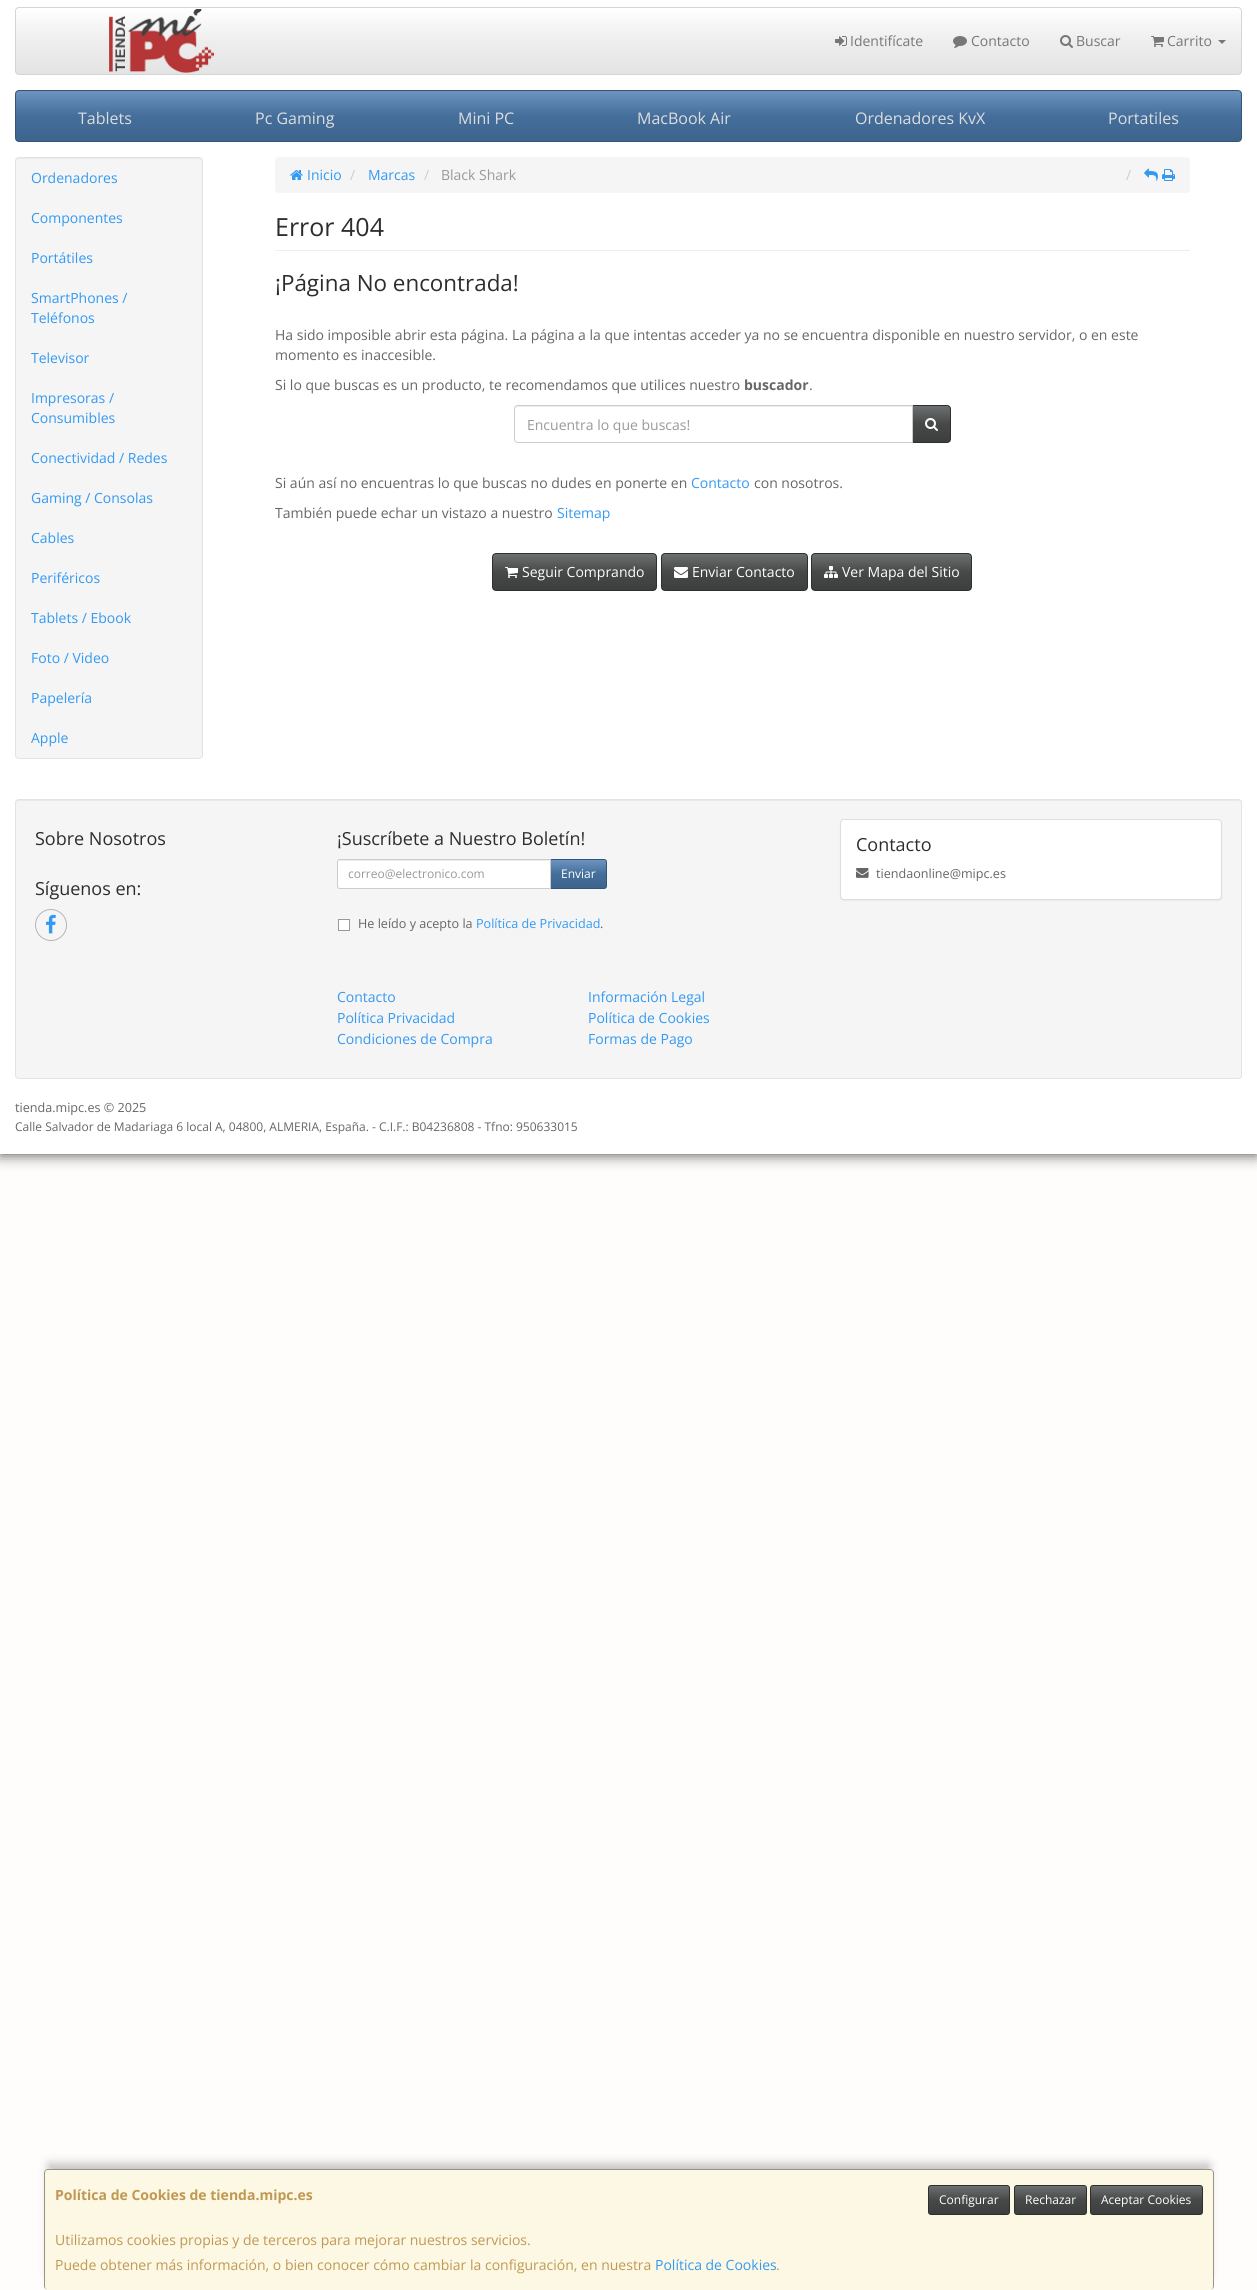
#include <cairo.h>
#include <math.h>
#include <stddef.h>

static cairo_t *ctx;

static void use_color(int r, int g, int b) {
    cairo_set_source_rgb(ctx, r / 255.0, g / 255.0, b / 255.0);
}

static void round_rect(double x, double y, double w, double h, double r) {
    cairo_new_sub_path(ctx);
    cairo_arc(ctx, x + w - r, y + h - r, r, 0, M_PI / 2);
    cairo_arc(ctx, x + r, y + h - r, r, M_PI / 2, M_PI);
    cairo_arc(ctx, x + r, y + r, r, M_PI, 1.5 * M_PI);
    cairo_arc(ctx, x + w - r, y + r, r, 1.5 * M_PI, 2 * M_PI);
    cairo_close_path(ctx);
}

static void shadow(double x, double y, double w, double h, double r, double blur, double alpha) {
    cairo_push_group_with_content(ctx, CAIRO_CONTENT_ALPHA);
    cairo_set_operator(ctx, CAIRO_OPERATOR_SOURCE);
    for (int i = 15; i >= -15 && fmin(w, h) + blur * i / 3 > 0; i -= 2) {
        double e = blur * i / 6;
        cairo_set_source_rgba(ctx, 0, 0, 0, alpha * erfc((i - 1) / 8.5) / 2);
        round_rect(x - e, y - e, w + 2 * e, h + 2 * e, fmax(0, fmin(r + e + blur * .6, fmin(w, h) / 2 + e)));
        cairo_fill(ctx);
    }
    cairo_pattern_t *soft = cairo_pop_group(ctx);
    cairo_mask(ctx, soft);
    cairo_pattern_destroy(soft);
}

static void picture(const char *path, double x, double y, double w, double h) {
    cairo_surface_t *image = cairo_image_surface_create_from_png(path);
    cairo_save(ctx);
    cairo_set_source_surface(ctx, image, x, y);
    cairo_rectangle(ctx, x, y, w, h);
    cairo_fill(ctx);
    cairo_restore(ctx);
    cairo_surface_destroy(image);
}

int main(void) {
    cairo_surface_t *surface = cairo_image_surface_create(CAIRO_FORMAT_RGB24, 1257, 2290);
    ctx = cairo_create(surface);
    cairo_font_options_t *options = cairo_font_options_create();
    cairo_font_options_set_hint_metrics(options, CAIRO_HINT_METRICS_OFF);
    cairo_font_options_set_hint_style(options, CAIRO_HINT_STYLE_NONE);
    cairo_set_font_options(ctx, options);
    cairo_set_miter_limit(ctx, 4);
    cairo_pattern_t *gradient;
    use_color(255, 252, 252);
    cairo_paint(ctx);
    use_color(0, 0, 0);
    shadow(0, 0, 1257, 1154, 0, 7.5, 0.75);
    use_color(255, 255, 255);
    cairo_rectangle(ctx, 0, 0, 1257, 1154);
    cairo_fill(ctx);
    cairo_save(ctx);
    round_rect(15, 7, 1227, 68, 4);
    cairo_clip(ctx);
    gradient = cairo_pattern_create_linear(629, 8, 629, 74);
    cairo_pattern_add_color_stop_rgba(gradient, 0, 1, 1, 1, 1);
    cairo_pattern_add_color_stop_rgba(gradient, 0.5, 0.933, 0.933, 0.933, 1);
    cairo_pattern_add_color_stop_rgba(gradient, 1, 0.894, 0.894, 0.894, 1);
    cairo_set_source(ctx, gradient);
    cairo_pattern_destroy(gradient);
    cairo_rectangle(ctx, 16, 8, 1225, 66);
    cairo_fill(ctx);
    cairo_restore(ctx);
    round_rect(15.5, 7.5, 1226, 67, 3.5);
    use_color(213, 213, 213);
    cairo_set_line_width(ctx, 1);
    cairo_stroke(ctx);
    picture("img1.png", 109, 9, 105, 64);
    picture("img2.png", 835, 36, 12, 10);
    cairo_select_font_face(ctx, "Open Sans", CAIRO_FONT_SLANT_NORMAL, CAIRO_FONT_WEIGHT_NORMAL);
    cairo_set_font_size(ctx, 14);
    use_color(119, 119, 119);
    cairo_move_to(ctx, 850, 46);
    cairo_show_text(ctx, "Identifícate");
    picture("img3.png", 953, 36, 14, 12);
    cairo_move_to(ctx, 971, 46);
    cairo_show_text(ctx, "Contacto");
    picture("img4.png", 1060, 35, 13, 13);
    cairo_move_to(ctx, 1076, 46);
    cairo_show_text(ctx, "Buscar");
    picture("img5.png", 1151, 36, 13, 11);
    cairo_move_to(ctx, 1167, 46);
    cairo_show_text(ctx, "Carrito");
    cairo_new_path(ctx);
    cairo_move_to(ctx, 1218, 40);
    cairo_line_to(ctx, 1226, 40);
    cairo_line_to(ctx, 1222, 44);
    cairo_close_path(ctx);
    cairo_fill(ctx);
    cairo_save(ctx);
    round_rect(15, 90, 1227, 52, 4);
    cairo_clip(ctx);
    gradient = cairo_pattern_create_linear(629, 91, 629, 141);
    cairo_pattern_add_color_stop_rgba(gradient, 0, 0.427, 0.58, 0.749, 1);
    cairo_pattern_add_color_stop_rgba(gradient, 0.5, 0.267, 0.431, 0.608, 1);
    cairo_pattern_add_color_stop_rgba(gradient, 1, 0.243, 0.392, 0.553, 1);
    cairo_set_source(ctx, gradient);
    cairo_pattern_destroy(gradient);
    cairo_rectangle(ctx, 16, 91, 1225, 50);
    cairo_fill(ctx);
    cairo_restore(ctx);
    round_rect(15.5, 90.5, 1226, 51, 3.5);
    use_color(52, 85, 120);
    cairo_stroke(ctx);
    cairo_set_font_size(ctx, 16);
    use_color(221, 221, 221);
    cairo_move_to(ctx, 78, 124);
    cairo_show_text(ctx, "Tablets");
    cairo_move_to(ctx, 255, 124);
    cairo_show_text(ctx, "Pc Gaming");
    cairo_move_to(ctx, 458, 124);
    cairo_show_text(ctx, "Mini PC");
    cairo_move_to(ctx, 637, 124);
    cairo_show_text(ctx, "MacBook Air");
    cairo_move_to(ctx, 855, 124);
    cairo_show_text(ctx, "Ordenadores KvX");
    cairo_move_to(ctx, 1108, 124);
    cairo_show_text(ctx, "Portatiles");
    use_color(245, 245, 245);
    round_rect(15, 157, 188, 602, 4);
    cairo_fill(ctx);
    use_color(233, 233, 233);
    cairo_new_path(ctx);
    cairo_move_to(ctx, 19, 159);
    cairo_line_to(ctx, 199, 159);
    cairo_line_to(ctx, 201, 160);
    cairo_line_to(ctx, 202, 162);
    cairo_curve_to(ctx, 202, 160, 201, 158, 199, 158);
    cairo_line_to(ctx, 18, 158);
    cairo_curve_to(ctx, 16, 159, 16, 160, 16, 162);
    cairo_curve_to(ctx, 16, 160, 17, 159, 19, 159);
    cairo_close_path(ctx);
    cairo_fill(ctx);
    round_rect(15.5, 157.5, 187, 601, 3.5);
    use_color(227, 227, 227);
    cairo_stroke(ctx);
    cairo_set_font_size(ctx, 14);
    use_color(51, 153, 243);
    cairo_move_to(ctx, 31, 183);
    cairo_show_text(ctx, "Ordenadores");
    cairo_move_to(ctx, 31, 223);
    cairo_show_text(ctx, "Componentes");
    cairo_move_to(ctx, 31, 263);
    cairo_show_text(ctx, "Portátiles");
    cairo_move_to(ctx, 31, 303);
    cairo_show_text(ctx, "SmartPhones /");
    cairo_move_to(ctx, 31, 323);
    cairo_show_text(ctx, "Teléfonos");
    cairo_move_to(ctx, 31, 363);
    cairo_show_text(ctx, "Televisor");
    cairo_move_to(ctx, 31, 403);
    cairo_show_text(ctx, "Impresoras /");
    cairo_move_to(ctx, 31, 423);
    cairo_show_text(ctx, "Consumibles");
    cairo_move_to(ctx, 31, 463);
    cairo_show_text(ctx, "Conectividad / Redes");
    cairo_move_to(ctx, 31, 503);
    cairo_show_text(ctx, "Gaming / Consolas");
    cairo_move_to(ctx, 31, 543);
    cairo_show_text(ctx, "Cables");
    cairo_move_to(ctx, 31, 583);
    cairo_show_text(ctx, "Periféricos");
    cairo_move_to(ctx, 31, 623);
    cairo_show_text(ctx, "Tablets / Ebook");
    cairo_move_to(ctx, 31, 663);
    cairo_show_text(ctx, "Foto / Video");
    cairo_move_to(ctx, 31, 703);
    cairo_show_text(ctx, "Papelería");
    cairo_move_to(ctx, 31, 743);
    cairo_show_text(ctx, "Apple");
    use_color(245, 245, 245);
    round_rect(275, 157, 915, 36, 4);
    cairo_fill(ctx);
    picture("img6.png", 290, 170, 13, 10);
    use_color(51, 153, 243);
    cairo_move_to(ctx, 307, 180);
    cairo_show_text(ctx, "Inicio");
    use_color(204, 204, 204);
    cairo_move_to(ctx, 350, 180);
    cairo_show_text(ctx, "/");
    use_color(51, 153, 243);
    cairo_move_to(ctx, 368, 180);
    cairo_show_text(ctx, "Marcas");
    use_color(204, 204, 204);
    cairo_move_to(ctx, 424, 180);
    cairo_show_text(ctx, "/");
    use_color(153, 153, 153);
    cairo_move_to(ctx, 441, 180);
    cairo_show_text(ctx, "Black Shark");
    use_color(204, 204, 204);
    cairo_move_to(ctx, 1126, 180);
    cairo_show_text(ctx, "/");
    picture("img7.png", 1144, 168, 14, 13);
    picture("img8.png", 1162, 169, 13, 12);
    use_color(238, 238, 238);
    cairo_rectangle(ctx, 275, 250, 915, 1);
    cairo_fill(ctx);
    cairo_set_font_size(ctx, 25);
    use_color(45, 45, 45);
    cairo_move_to(ctx, 275, 236);
    cairo_show_text(ctx, "Error 404");
    cairo_set_font_size(ctx, 22.4);
    cairo_move_to(ctx, 275, 291);
    cairo_show_text(ctx, "¡Página No encontrada!");
    cairo_set_font_size(ctx, 14);
    use_color(102, 102, 102);
    cairo_move_to(ctx, 275, 340);
    cairo_show_text(ctx, "Ha sido imposible abrir esta página. La página a la que intentas acceder ya no se encuentra disponible en nuestro servidor, o en este");
    cairo_move_to(ctx, 275, 360);
    cairo_show_text(ctx, "momento es inaccesible.");
    cairo_move_to(ctx, 275, 390);
    cairo_show_text(ctx, "Si lo que buscas es un producto, te recomendamos que utilices nuestro");
    cairo_select_font_face(ctx, "Open Sans", CAIRO_FONT_SLANT_NORMAL, CAIRO_FONT_WEIGHT_BOLD);
    cairo_move_to(ctx, 744, 390);
    cairo_show_text(ctx, "buscador");
    cairo_select_font_face(ctx, "Open Sans", CAIRO_FONT_SLANT_NORMAL, CAIRO_FONT_WEIGHT_NORMAL);
    cairo_move_to(ctx, 809, 390);
    cairo_show_text(ctx, ".");
    gradient = cairo_pattern_create_linear(932, 406, 932, 442);
    cairo_pattern_add_color_stop_rgba(gradient, 0, 0.427, 0.439, 0.439, 1);
    cairo_pattern_add_color_stop_rgba(gradient, 0.5, 0.278, 0.286, 0.286, 1);
    cairo_pattern_add_color_stop_rgba(gradient, 1, 0.239, 0.247, 0.247, 1);
    cairo_set_source(ctx, gradient);
    cairo_pattern_destroy(gradient);
    cairo_rectangle(ctx, 913, 406, 37, 36);
    cairo_fill(ctx);
    cairo_new_path(ctx);
    cairo_move_to(ctx, 912.5, 405.5);
    cairo_line_to(ctx, 947, 405.5);
    cairo_curve_to(ctx, 949, 405.5, 950.5, 407, 950.5, 409);
    cairo_line_to(ctx, 950.5, 439);
    cairo_curve_to(ctx, 950.5, 441, 949, 442.5, 947, 442.5);
    cairo_line_to(ctx, 912.5, 442.5);
    cairo_close_path(ctx);
    use_color(46, 47, 47);
    cairo_stroke(ctx);
    use_color(255, 255, 255);
    cairo_new_path(ctx);
    cairo_move_to(ctx, 518, 405);
    cairo_line_to(ctx, 913, 405);
    cairo_line_to(ctx, 913, 443);
    cairo_line_to(ctx, 518, 443);
    cairo_curve_to(ctx, 516, 443, 514, 441, 514, 439);
    cairo_line_to(ctx, 514, 409);
    cairo_curve_to(ctx, 514, 407, 516, 405, 518, 405);
    cairo_close_path(ctx);
    cairo_fill(ctx);
    use_color(236, 236, 236);
    cairo_new_path(ctx);
    cairo_move_to(ctx, 518, 407);
    cairo_line_to(ctx, 912, 407);
    cairo_line_to(ctx, 912, 406);
    cairo_line_to(ctx, 518, 406);
    cairo_curve_to(ctx, 516, 406, 515, 407, 515, 409);
    cairo_line_to(ctx, 515, 410);
    cairo_curve_to(ctx, 515, 408, 516, 407, 518, 407);
    cairo_close_path(ctx);
    cairo_fill(ctx);
    cairo_new_path(ctx);
    cairo_move_to(ctx, 518, 405.5);
    cairo_line_to(ctx, 912.5, 405.5);
    cairo_line_to(ctx, 912.5, 442.5);
    cairo_line_to(ctx, 518, 442.5);
    cairo_curve_to(ctx, 516, 442.5, 514.5, 441, 514.5, 439);
    cairo_line_to(ctx, 514.5, 409);
    cairo_curve_to(ctx, 514.5, 407, 516, 405.5, 518, 405.5);
    cairo_close_path(ctx);
    use_color(204, 204, 204);
    cairo_stroke(ctx);
    use_color(153, 153, 153);
    cairo_move_to(ctx, 527, 430);
    cairo_show_text(ctx, "Encuentra lo que buscas!");
    picture("img9.png", 925, 418, 13, 13);
    use_color(102, 102, 102);
    cairo_move_to(ctx, 275, 488);
    cairo_show_text(ctx, "Si aún así no encuentras lo que buscas no dudes en ponerte en");
    use_color(51, 153, 243);
    cairo_move_to(ctx, 691, 488);
    cairo_show_text(ctx, "Contacto");
    use_color(102, 102, 102);
    cairo_move_to(ctx, 754, 488);
    cairo_show_text(ctx, "con nosotros.");
    cairo_move_to(ctx, 275, 518);
    cairo_show_text(ctx, "También puede echar un vistazo a nuestro");
    use_color(51, 153, 243);
    cairo_move_to(ctx, 557, 518);
    cairo_show_text(ctx, "Sitemap");
    cairo_save(ctx);
    round_rect(492, 553, 165, 38, 4);
    cairo_clip(ctx);
    gradient = cairo_pattern_create_linear(575, 554, 575, 590);
    cairo_pattern_add_color_stop_rgba(gradient, 0, 0.427, 0.439, 0.439, 1);
    cairo_pattern_add_color_stop_rgba(gradient, 0.5, 0.278, 0.286, 0.286, 1);
    cairo_pattern_add_color_stop_rgba(gradient, 1, 0.239, 0.247, 0.247, 1);
    cairo_set_source(ctx, gradient);
    cairo_pattern_destroy(gradient);
    cairo_rectangle(ctx, 493, 554, 163, 36);
    cairo_fill(ctx);
    cairo_restore(ctx);
    round_rect(492.5, 553.5, 164, 37, 3.5);
    use_color(46, 47, 47);
    cairo_stroke(ctx);
    picture("img10.png", 505, 567, 13, 11);
    use_color(255, 255, 255);
    cairo_move_to(ctx, 522, 577);
    cairo_show_text(ctx, "Seguir Comprando");
    cairo_save(ctx);
    round_rect(661, 553, 147, 38, 4);
    cairo_clip(ctx);
    gradient = cairo_pattern_create_linear(735, 554, 735, 590);
    cairo_pattern_add_color_stop_rgba(gradient, 0, 0.427, 0.439, 0.439, 1);
    cairo_pattern_add_color_stop_rgba(gradient, 0.5, 0.278, 0.286, 0.286, 1);
    cairo_pattern_add_color_stop_rgba(gradient, 1, 0.239, 0.247, 0.247, 1);
    cairo_set_source(ctx, gradient);
    cairo_pattern_destroy(gradient);
    cairo_rectangle(ctx, 662, 554, 145, 36);
    cairo_fill(ctx);
    cairo_restore(ctx);
    round_rect(661.5, 553.5, 146, 37, 3.5);
    use_color(46, 47, 47);
    cairo_stroke(ctx);
    picture("img11.png", 674, 567, 14, 11);
    use_color(255, 255, 255);
    cairo_move_to(ctx, 692, 577);
    cairo_show_text(ctx, "Enviar Contacto");
    cairo_save(ctx);
    round_rect(811, 553, 161, 38, 4);
    cairo_clip(ctx);
    gradient = cairo_pattern_create_linear(892, 554, 892, 590);
    cairo_pattern_add_color_stop_rgba(gradient, 0, 0.427, 0.439, 0.439, 1);
    cairo_pattern_add_color_stop_rgba(gradient, 0.5, 0.278, 0.286, 0.286, 1);
    cairo_pattern_add_color_stop_rgba(gradient, 1, 0.239, 0.247, 0.247, 1);
    cairo_set_source(ctx, gradient);
    cairo_pattern_destroy(gradient);
    cairo_rectangle(ctx, 812, 554, 159, 36);
    cairo_fill(ctx);
    cairo_restore(ctx);
    round_rect(811.5, 553.5, 160, 37, 3.5);
    use_color(46, 47, 47);
    cairo_stroke(ctx);
    picture("img12.png", 824, 566, 14, 12);
    use_color(255, 255, 255);
    cairo_move_to(ctx, 842, 577);
    cairo_show_text(ctx, "Ver Mapa del Sitio");
    use_color(245, 245, 245);
    round_rect(15, 799, 1227, 280, 4);
    cairo_fill(ctx);
    use_color(233, 233, 233);
    cairo_new_path(ctx);
    cairo_move_to(ctx, 19, 801);
    cairo_line_to(ctx, 1238, 801);
    cairo_curve_to(ctx, 1240, 801, 1241, 802, 1241, 804);
    cairo_line_to(ctx, 1241, 803);
    cairo_curve_to(ctx, 1241, 801, 1240, 800, 1238, 800);
    cairo_line_to(ctx, 19, 800);
    cairo_curve_to(ctx, 17, 800, 16, 801, 16, 803);
    cairo_line_to(ctx, 16, 804);
    cairo_curve_to(ctx, 16, 802, 17, 801, 19, 801);
    cairo_close_path(ctx);
    cairo_fill(ctx);
    round_rect(15.5, 799.5, 1226, 279, 3.5);
    use_color(227, 227, 227);
    cairo_stroke(ctx);
    cairo_set_font_size(ctx, 18);
    use_color(45, 45, 45);
    cairo_move_to(ctx, 35, 845);
    cairo_show_text(ctx, "Sobre Nosotros");
    cairo_move_to(ctx, 35, 895);
    cairo_show_text(ctx, "Síguenos en:");
    cairo_new_path(ctx);
    cairo_arc(ctx, 51, 925, 15.5, 0, 2 * M_PI);
    use_color(181, 181, 181);
    cairo_stroke(ctx);
    picture("img13.png", 46, 914, 10, 20);
    use_color(45, 45, 45);
    cairo_move_to(ctx, 337, 845);
    cairo_show_text(ctx, "¡Suscríbete a Nuestro Boletín!");
    gradient = cairo_pattern_create_linear(579, 860, 579, 888);
    cairo_pattern_add_color_stop_rgba(gradient, 0, 0.427, 0.58, 0.749, 1);
    cairo_pattern_add_color_stop_rgba(gradient, 0.5, 0.267, 0.431, 0.608, 1);
    cairo_pattern_add_color_stop_rgba(gradient, 1, 0.243, 0.392, 0.553, 1);
    cairo_set_source(ctx, gradient);
    cairo_pattern_destroy(gradient);
    cairo_rectangle(ctx, 551, 860, 55, 28);
    cairo_fill(ctx);
    cairo_new_path(ctx);
    cairo_move_to(ctx, 550.5, 859.5);
    cairo_line_to(ctx, 604, 859.5);
    cairo_curve_to(ctx, 605.5, 859.5, 606.5, 860.5, 606.5, 862);
    cairo_line_to(ctx, 606.5, 886);
    cairo_curve_to(ctx, 606.5, 887.5, 605.5, 888.5, 604, 888.5);
    cairo_line_to(ctx, 550.5, 888.5);
    cairo_close_path(ctx);
    use_color(52, 85, 120);
    cairo_stroke(ctx);
    use_color(255, 255, 255);
    cairo_new_path(ctx);
    cairo_move_to(ctx, 340, 859);
    cairo_line_to(ctx, 551, 859);
    cairo_line_to(ctx, 551, 889);
    cairo_line_to(ctx, 340, 889);
    cairo_curve_to(ctx, 338.5, 889, 337, 887.5, 337, 886);
    cairo_line_to(ctx, 337, 862);
    cairo_curve_to(ctx, 337, 860.5, 338.5, 859, 340, 859);
    cairo_close_path(ctx);
    cairo_fill(ctx);
    use_color(236, 236, 236);
    cairo_new_path(ctx);
    cairo_move_to(ctx, 340, 861);
    cairo_line_to(ctx, 550, 861);
    cairo_line_to(ctx, 550, 860);
    cairo_line_to(ctx, 340, 860);
    cairo_line_to(ctx, 339, 861);
    cairo_line_to(ctx, 338, 863);
    cairo_curve_to(ctx, 338, 862, 339, 861, 340, 861);
    cairo_close_path(ctx);
    cairo_fill(ctx);
    cairo_new_path(ctx);
    cairo_move_to(ctx, 340, 859.5);
    cairo_line_to(ctx, 550.5, 859.5);
    cairo_line_to(ctx, 550.5, 888.5);
    cairo_line_to(ctx, 340, 888.5);
    cairo_curve_to(ctx, 338.5, 888.5, 337.5, 887.5, 337.5, 886);
    cairo_line_to(ctx, 337.5, 862);
    cairo_curve_to(ctx, 337.5, 860.5, 338.5, 859.5, 340, 859.5);
    cairo_close_path(ctx);
    use_color(204, 204, 204);
    cairo_stroke(ctx);
    cairo_set_font_size(ctx, 12);
    use_color(153, 153, 153);
    cairo_move_to(ctx, 348, 878);
    cairo_show_text(ctx, "correo@electronico.com");
    use_color(255, 255, 255);
    cairo_move_to(ctx, 561, 878);
    cairo_show_text(ctx, "Enviar");
    cairo_rectangle(ctx, 338.5, 919.5, 11, 11);
    cairo_fill_preserve(ctx);
    use_color(153, 153, 153);
    cairo_stroke(ctx);
    cairo_set_font_size(ctx, 12.6);
    use_color(102, 102, 102);
    cairo_move_to(ctx, 358, 928);
    cairo_show_text(ctx, "He leído y acepto la");
    use_color(51, 153, 243);
    cairo_move_to(ctx, 476, 928);
    cairo_show_text(ctx, "Política de Privacidad");
    use_color(102, 102, 102);
    cairo_move_to(ctx, 600, 928);
    cairo_show_text(ctx, ".");
    cairo_set_font_size(ctx, 14);
    use_color(51, 153, 243);
    cairo_move_to(ctx, 337, 1002);
    cairo_show_text(ctx, "Contacto");
    cairo_move_to(ctx, 588, 1002);
    cairo_show_text(ctx, "Información Legal");
    cairo_move_to(ctx, 337, 1023);
    cairo_show_text(ctx, "Política Privacidad");
    cairo_move_to(ctx, 588, 1023);
    cairo_show_text(ctx, "Política de Cookies");
    cairo_move_to(ctx, 337, 1044);
    cairo_show_text(ctx, "Condiciones de Compra");
    cairo_move_to(ctx, 588, 1044);
    cairo_show_text(ctx, "Formas de Pago");
    use_color(0, 0, 0);
    shadow(840, 820, 382, 81, 4, 0.5, 0.05);
    use_color(255, 255, 255);
    round_rect(840.5, 819.5, 381, 80, 3.5);
    cairo_fill_preserve(ctx);
    use_color(221, 221, 221);
    cairo_stroke(ctx);
    cairo_set_font_size(ctx, 18);
    use_color(45, 45, 45);
    cairo_move_to(ctx, 856, 851);
    cairo_show_text(ctx, "Contacto");
    picture("img14.png", 856, 868, 13, 10);
    cairo_set_font_size(ctx, 12.6);
    use_color(102, 102, 102);
    cairo_move_to(ctx, 876, 878);
    cairo_show_text(ctx, "tiendaonline@mipc.es");
    cairo_move_to(ctx, 15, 1112);
    cairo_show_text(ctx, "tienda.mipc.es © 2025");
    cairo_set_font_size(ctx, 12);
    cairo_move_to(ctx, 15, 1131);
    cairo_show_text(ctx, "Calle Salvador de Madariaga 6 local A, 04800, ALMERIA, España. - C.I.F.: B04236808 - Tfno: 950633015");
    use_color(0, 0, 0);
    shadow(49, 2164, 1160, 111, 0, 5, 0.25);
    use_color(252, 248, 227);
    round_rect(44, 2169, 1170, 121, 4);
    cairo_fill(ctx);
    cairo_set_source_rgba(ctx, 0, 0, 0, 0.4);
    cairo_set_fill_rule(ctx, CAIRO_FILL_RULE_EVEN_ODD);
    cairo_new_path(ctx);
    cairo_move_to(ctx, 48, 2169);
    cairo_line_to(ctx, 1210, 2169);
    cairo_curve_to(ctx, 1212, 2169, 1214, 2171, 1214, 2173);
    cairo_line_to(ctx, 1214, 2286);
    cairo_curve_to(ctx, 1214, 2288, 1212, 2290, 1210, 2290);
    cairo_line_to(ctx, 48, 2290);
    cairo_curve_to(ctx, 46, 2290, 44, 2288, 44, 2286);
    cairo_line_to(ctx, 44, 2173);
    cairo_curve_to(ctx, 44, 2171, 46, 2169, 48, 2169);
    cairo_close_path(ctx);
    cairo_move_to(ctx, 48, 2170);
    cairo_line_to(ctx, 1210, 2170);
    cairo_curve_to(ctx, 1212, 2170, 1213, 2171, 1213, 2173);
    cairo_line_to(ctx, 1213, 2286);
    cairo_curve_to(ctx, 1213, 2288, 1212, 2290, 1210, 2290);
    cairo_line_to(ctx, 48, 2290);
    cairo_curve_to(ctx, 46, 2290, 45, 2288, 45, 2286);
    cairo_line_to(ctx, 45, 2173);
    cairo_curve_to(ctx, 45, 2171, 46, 2170, 48, 2170);
    cairo_close_path(ctx);
    cairo_fill(ctx);
    cairo_select_font_face(ctx, "Open Sans", CAIRO_FONT_SLANT_NORMAL, CAIRO_FONT_WEIGHT_BOLD);
    cairo_set_font_size(ctx, 14);
    use_color(192, 152, 83);
    cairo_move_to(ctx, 55, 2200);
    cairo_show_text(ctx, "Política de Cookies de tienda.mipc.es");
    gradient = cairo_pattern_create_linear(969, 2186, 969, 2214);
    cairo_pattern_add_color_stop_rgba(gradient, 0, 0.427, 0.439, 0.439, 1);
    cairo_pattern_add_color_stop_rgba(gradient, 0.5, 0.278, 0.286, 0.286, 1);
    cairo_pattern_add_color_stop_rgba(gradient, 1, 0.239, 0.247, 0.247, 1);
    cairo_set_source(ctx, gradient);
    cairo_pattern_destroy(gradient);
    cairo_rectangle(ctx, 929, 2186, 80, 28);
    cairo_fill(ctx);
    round_rect(928.5, 2185.5, 81, 29, 2.5);
    use_color(46, 47, 47);
    cairo_stroke(ctx);
    cairo_select_font_face(ctx, "Open Sans", CAIRO_FONT_SLANT_NORMAL, CAIRO_FONT_WEIGHT_NORMAL);
    cairo_set_font_size(ctx, 12);
    use_color(255, 255, 255);
    cairo_move_to(ctx, 939, 2204);
    cairo_show_text(ctx, "Configurar");
    gradient = cairo_pattern_create_linear(1051, 2186, 1051, 2214);
    cairo_pattern_add_color_stop_rgba(gradient, 0, 0.427, 0.439, 0.439, 1);
    cairo_pattern_add_color_stop_rgba(gradient, 0.5, 0.278, 0.286, 0.286, 1);
    cairo_pattern_add_color_stop_rgba(gradient, 1, 0.239, 0.247, 0.247, 1);
    cairo_set_source(ctx, gradient);
    cairo_pattern_destroy(gradient);
    cairo_rectangle(ctx, 1015, 2186, 71, 28);
    cairo_fill(ctx);
    round_rect(1014.5, 2185.5, 72, 29, 2.5);
    use_color(46, 47, 47);
    cairo_stroke(ctx);
    use_color(255, 255, 255);
    cairo_move_to(ctx, 1025, 2204);
    cairo_show_text(ctx, "Rechazar");
    gradient = cairo_pattern_create_linear(1147, 2186, 1147, 2214);
    cairo_pattern_add_color_stop_rgba(gradient, 0, 0.427, 0.439, 0.439, 1);
    cairo_pattern_add_color_stop_rgba(gradient, 0.5, 0.278, 0.286, 0.286, 1);
    cairo_pattern_add_color_stop_rgba(gradient, 1, 0.239, 0.247, 0.247, 1);
    cairo_set_source(ctx, gradient);
    cairo_pattern_destroy(gradient);
    cairo_rectangle(ctx, 1091, 2186, 111, 28);
    cairo_fill(ctx);
    round_rect(1090.5, 2185.5, 112, 29, 2.5);
    use_color(46, 47, 47);
    cairo_stroke(ctx);
    use_color(255, 255, 255);
    cairo_move_to(ctx, 1101, 2204);
    cairo_show_text(ctx, "Aceptar Cookies");
    cairo_set_font_size(ctx, 14);
    use_color(192, 152, 83);
    cairo_move_to(ctx, 55, 2245);
    cairo_show_text(ctx, "Utilizamos cookies propias y de terceros para mejorar nuestros servicios.");
    cairo_move_to(ctx, 55, 2270);
    cairo_show_text(ctx, "Puede obtener más información, o bien conocer cómo cambiar la configuración, en nuestra");
    use_color(51, 153, 243);
    cairo_move_to(ctx, 655, 2270);
    cairo_show_text(ctx, "Política de Cookies");
    use_color(192, 152, 83);
    cairo_move_to(ctx, 776, 2270);
    cairo_show_text(ctx, ".");
    cairo_surface_write_to_png(surface, "result.png");
    cairo_font_options_destroy(options);
    cairo_destroy(ctx);
    cairo_surface_destroy(surface);
    return 0;
}
